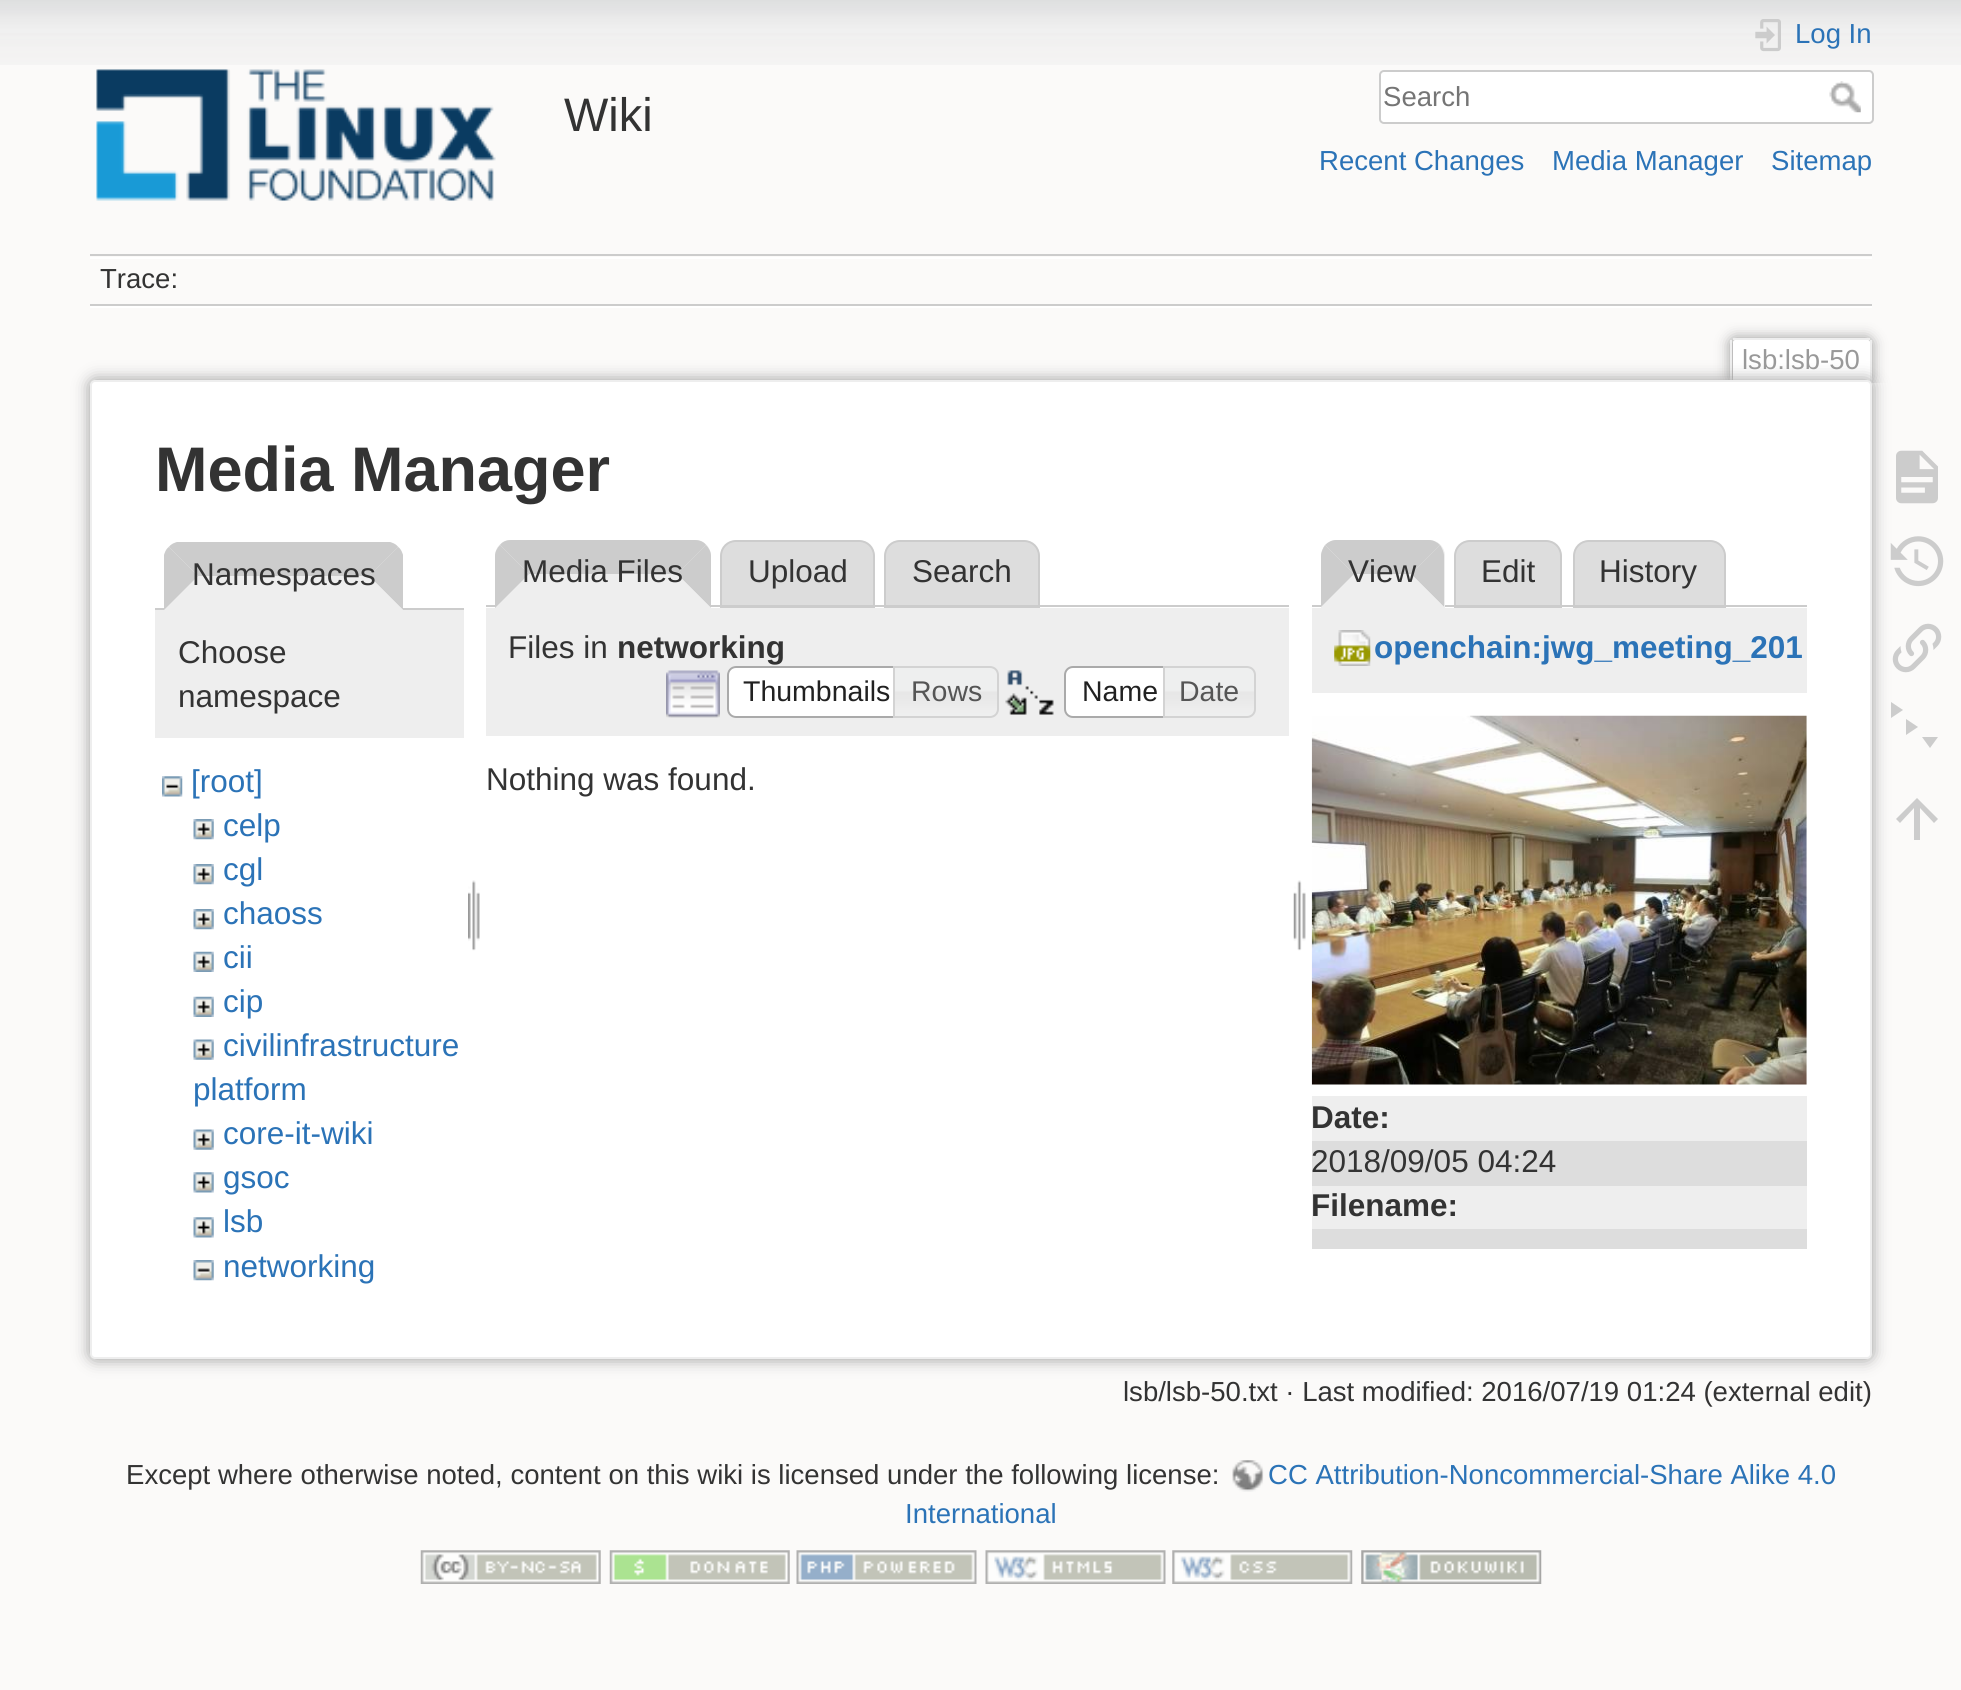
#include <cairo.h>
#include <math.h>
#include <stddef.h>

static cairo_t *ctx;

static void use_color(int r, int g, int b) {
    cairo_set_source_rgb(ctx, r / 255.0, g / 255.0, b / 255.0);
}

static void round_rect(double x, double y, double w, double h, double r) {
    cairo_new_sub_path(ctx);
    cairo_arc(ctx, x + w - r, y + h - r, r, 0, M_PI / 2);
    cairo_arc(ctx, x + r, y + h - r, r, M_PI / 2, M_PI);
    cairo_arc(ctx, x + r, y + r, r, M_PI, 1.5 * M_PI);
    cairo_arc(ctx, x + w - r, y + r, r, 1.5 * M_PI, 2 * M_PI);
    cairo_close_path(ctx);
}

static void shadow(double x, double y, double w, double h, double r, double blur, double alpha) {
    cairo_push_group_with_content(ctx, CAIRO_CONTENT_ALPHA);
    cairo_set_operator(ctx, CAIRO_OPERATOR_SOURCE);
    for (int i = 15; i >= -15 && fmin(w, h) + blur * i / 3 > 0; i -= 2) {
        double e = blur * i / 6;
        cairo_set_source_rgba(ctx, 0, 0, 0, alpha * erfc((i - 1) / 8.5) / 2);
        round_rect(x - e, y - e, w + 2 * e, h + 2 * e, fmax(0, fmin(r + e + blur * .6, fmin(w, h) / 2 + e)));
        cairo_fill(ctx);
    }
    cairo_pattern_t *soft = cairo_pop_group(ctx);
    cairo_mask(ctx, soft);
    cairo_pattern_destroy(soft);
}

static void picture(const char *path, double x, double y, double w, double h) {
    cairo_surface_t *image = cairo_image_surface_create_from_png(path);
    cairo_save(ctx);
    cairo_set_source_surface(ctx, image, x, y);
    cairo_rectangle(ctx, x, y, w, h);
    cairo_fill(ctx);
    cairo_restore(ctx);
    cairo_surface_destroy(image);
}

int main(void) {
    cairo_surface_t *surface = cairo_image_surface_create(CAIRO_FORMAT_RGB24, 1961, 1690);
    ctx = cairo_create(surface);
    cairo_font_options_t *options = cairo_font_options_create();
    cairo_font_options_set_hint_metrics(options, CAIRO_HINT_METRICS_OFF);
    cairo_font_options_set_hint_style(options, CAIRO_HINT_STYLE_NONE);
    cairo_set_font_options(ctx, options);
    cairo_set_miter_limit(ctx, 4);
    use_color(251, 250, 249);
    cairo_paint(ctx);
    picture("img1.png", 0, 0, 1961, 65);
    picture("img2.png", 96, 69, 400, 132);
    cairo_select_font_face(ctx, "Liberation Sans", CAIRO_FONT_SLANT_NORMAL, CAIRO_FONT_WEIGHT_NORMAL);
    cairo_set_font_size(ctx, 47);
    use_color(51, 51, 51);
    cairo_move_to(ctx, 564, 131);
    cairo_show_text(ctx, "Wiki");
    picture("img3.png", 1755, 19, 26, 33);
    cairo_set_font_size(ctx, 27.55);
    use_color(43, 115, 183);
    cairo_move_to(ctx, 1795, 43);
    cairo_show_text(ctx, "Log In");
    use_color(255, 255, 255);
    round_rect(1380, 71, 493, 52, 4);
    cairo_fill_preserve(ctx);
    use_color(204, 204, 204);
    cairo_stroke(ctx);
    use_color(117, 117, 117);
    cairo_move_to(ctx, 1383, 106);
    cairo_show_text(ctx, "Search");
    picture("img4.png", 1829, 81, 32, 32);
    use_color(43, 115, 183);
    cairo_move_to(ctx, 1319, 170);
    cairo_show_text(ctx, "Recent Changes");
    cairo_move_to(ctx, 1552, 170);
    cairo_show_text(ctx, "Media Manager");
    cairo_move_to(ctx, 1771, 170);
    cairo_show_text(ctx, "Sitemap");
    use_color(204, 204, 204);
    cairo_rectangle(ctx, 90, 254, 1782, 2);
    cairo_fill(ctx);
    use_color(255, 255, 255);
    cairo_rectangle(ctx, 90, 306, 1782, 2);
    cairo_fill(ctx);
    cairo_rectangle(ctx, 90, 257, 1782, 2);
    cairo_fill(ctx);
    use_color(204, 204, 204);
    cairo_rectangle(ctx, 90, 304, 1782, 2);
    cairo_fill(ctx);
    use_color(51, 51, 51);
    cairo_move_to(ctx, 100, 288);
    cairo_show_text(ctx, "Trace:");
    cairo_save(ctx);
    cairo_rectangle(ctx, 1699, 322, 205, 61);
    cairo_clip(ctx);
    use_color(153, 153, 153);
    shadow(1730, 338, 142, 45, 5, 7, 1);
    cairo_restore(ctx);
    use_color(255, 255, 255);
    cairo_new_path(ctx);
    cairo_move_to(ctx, 1735, 340);
    cairo_line_to(ctx, 1868, 340);
    cairo_curve_to(ctx, 1869, 340, 1870, 341, 1870, 342);
    cairo_line_to(ctx, 1870, 383);
    cairo_line_to(ctx, 1733, 383);
    cairo_line_to(ctx, 1733, 342);
    cairo_curve_to(ctx, 1733, 341, 1734, 340, 1735, 340);
    cairo_close_path(ctx);
    cairo_fill(ctx);
    use_color(238, 238, 238);
    cairo_rectangle(ctx, 1733, 338, 137, 2);
    cairo_fill(ctx);
    cairo_rectangle(ctx, 1870, 340, 2, 43);
    cairo_fill(ctx);
    cairo_rectangle(ctx, 1730, 340, 2, 43);
    cairo_fill(ctx);
    use_color(153, 153, 153);
    cairo_move_to(ctx, 1742, 369);
    cairo_show_text(ctx, "lsb:lsb-50");
    use_color(153, 153, 153);
    shadow(90, 380, 1782, 979, 5, 8, 1);
    use_color(255, 255, 255);
    round_rect(91, 381, 1780, 977, 4);
    cairo_fill_preserve(ctx);
    use_color(238, 238, 238);
    cairo_stroke(ctx);
    cairo_select_font_face(ctx, "Liberation Sans", CAIRO_FONT_SLANT_NORMAL, CAIRO_FONT_WEIGHT_BOLD);
    cairo_set_font_size(ctx, 63);
    use_color(51, 51, 51);
    cairo_move_to(ctx, 155, 491);
    cairo_show_text(ctx, "Media Manager");
    use_color(204, 204, 204);
    cairo_rectangle(ctx, 155, 608, 309, 2);
    cairo_fill(ctx);
    use_color(238, 238, 238);
    cairo_new_path(ctx);
    cairo_move_to(ctx, 180, 542);
    cairo_line_to(ctx, 387, 542);
    cairo_curve_to(ctx, 396, 542, 403, 549, 403, 558);
    cairo_line_to(ctx, 403, 610);
    cairo_line_to(ctx, 164, 610);
    cairo_line_to(ctx, 164, 558);
    cairo_curve_to(ctx, 164, 549, 171, 542, 180, 542);
    cairo_close_path(ctx);
    cairo_fill(ctx);
    use_color(204, 204, 204);
    cairo_new_path(ctx);
    cairo_move_to(ctx, 390, 542);
    cairo_line_to(ctx, 177, 542);
    cairo_curve_to(ctx, 174, 543, 171, 544, 169, 547);
    cairo_line_to(ctx, 198, 576);
    cairo_line_to(ctx, 369, 576);
    cairo_line_to(ctx, 398, 547);
    cairo_curve_to(ctx, 396, 544, 393, 543, 390, 542);
    cairo_close_path(ctx);
    cairo_fill(ctx);
    cairo_new_path(ctx);
    cairo_move_to(ctx, 398, 547);
    cairo_line_to(ctx, 369, 576);
    cairo_line_to(ctx, 403, 610);
    cairo_line_to(ctx, 403, 555);
    cairo_curve_to(ctx, 402, 552, 401, 549, 398, 547);
    cairo_close_path(ctx);
    cairo_fill(ctx);
    use_color(238, 238, 238);
    cairo_new_path(ctx);
    cairo_move_to(ctx, 403, 610);
    cairo_line_to(ctx, 369, 576);
    cairo_line_to(ctx, 198, 576);
    cairo_line_to(ctx, 164, 610);
    cairo_close_path(ctx);
    cairo_fill(ctx);
    use_color(204, 204, 204);
    cairo_new_path(ctx);
    cairo_move_to(ctx, 164, 610);
    cairo_line_to(ctx, 198, 576);
    cairo_line_to(ctx, 169, 547);
    cairo_curve_to(ctx, 166, 549, 165, 552, 164, 555);
    cairo_close_path(ctx);
    cairo_fill(ctx);
    cairo_select_font_face(ctx, "Liberation Sans", CAIRO_FONT_SLANT_NORMAL, CAIRO_FONT_WEIGHT_NORMAL);
    cairo_set_font_size(ctx, 31.5);
    use_color(51, 51, 51);
    cairo_move_to(ctx, 192, 585);
    cairo_show_text(ctx, "Namespaces");
    use_color(238, 238, 238);
    cairo_rectangle(ctx, 155, 610, 309, 128);
    cairo_fill(ctx);
    use_color(51, 51, 51);
    cairo_move_to(ctx, 178, 663);
    cairo_show_text(ctx, "Choose");
    cairo_move_to(ctx, 178, 707);
    cairo_show_text(ctx, "namespace");
    picture("img5.png", 162, 776, 21, 21);
    use_color(43, 115, 183);
    cairo_move_to(ctx, 191, 792);
    cairo_show_text(ctx, "[root]");
    picture("img6.png", 193, 819, 21, 21);
    cairo_move_to(ctx, 223, 836);
    cairo_show_text(ctx, "celp");
    picture("img6.png", 193, 864, 21, 21);
    cairo_move_to(ctx, 223, 880);
    cairo_show_text(ctx, "cgl");
    picture("img6.png", 193, 909, 21, 21);
    cairo_move_to(ctx, 223, 924);
    cairo_show_text(ctx, "chaoss");
    picture("img7.png", 193, 951, 21, 21);
    cairo_move_to(ctx, 223, 968);
    cairo_show_text(ctx, "cii");
    picture("img7.png", 193, 996, 21, 21);
    cairo_move_to(ctx, 223, 1012);
    cairo_show_text(ctx, "cip");
    picture("img8.png", 193, 1039, 21, 21);
    cairo_move_to(ctx, 223, 1056);
    cairo_show_text(ctx, "civilinfrastructure");
    cairo_move_to(ctx, 193, 1100);
    cairo_show_text(ctx, "platform");
    picture("img8.png", 193, 1129, 21, 21);
    cairo_move_to(ctx, 223, 1144);
    cairo_show_text(ctx, "core-it-wiki");
    picture("img9.png", 193, 1172, 21, 21);
    cairo_move_to(ctx, 223, 1188);
    cairo_show_text(ctx, "gsoc");
    picture("img9.png", 193, 1217, 21, 21);
    cairo_move_to(ctx, 223, 1232);
    cairo_show_text(ctx, "lsb");
    picture("img10.png", 193, 1260, 21, 21);
    cairo_move_to(ctx, 223, 1277);
    cairo_show_text(ctx, "networking");
    picture("img11.png", 468, 880, 12, 71);
    use_color(221, 221, 221);
    cairo_new_path(ctx);
    cairo_move_to(ctx, 736, 541);
    cairo_line_to(ctx, 859, 541);
    cairo_curve_to(ctx, 867.5, 541, 874, 547.5, 874, 556);
    cairo_line_to(ctx, 874, 607);
    cairo_line_to(ctx, 721, 607);
    cairo_line_to(ctx, 721, 556);
    cairo_curve_to(ctx, 721, 547.5, 727.5, 541, 736, 541);
    cairo_close_path(ctx);
    cairo_fill_preserve(ctx);
    use_color(204, 204, 204);
    cairo_stroke(ctx);
    use_color(221, 221, 221);
    cairo_new_path(ctx);
    cairo_move_to(ctx, 900, 541);
    cairo_line_to(ctx, 1024, 541);
    cairo_curve_to(ctx, 1032.5, 541, 1039, 547.5, 1039, 556);
    cairo_line_to(ctx, 1039, 607);
    cairo_line_to(ctx, 885, 607);
    cairo_line_to(ctx, 885, 556);
    cairo_curve_to(ctx, 885, 547.5, 891.5, 541, 900, 541);
    cairo_close_path(ctx);
    cairo_fill_preserve(ctx);
    use_color(204, 204, 204);
    cairo_stroke(ctx);
    cairo_rectangle(ctx, 486, 605, 803, 2);
    cairo_fill(ctx);
    use_color(238, 238, 238);
    cairo_new_path(ctx);
    cairo_move_to(ctx, 511, 540);
    cairo_line_to(ctx, 695, 540);
    cairo_curve_to(ctx, 704, 540, 711, 547, 711, 556);
    cairo_line_to(ctx, 711, 608);
    cairo_line_to(ctx, 495, 608);
    cairo_line_to(ctx, 495, 556);
    cairo_curve_to(ctx, 495, 547, 502, 540, 511, 540);
    cairo_close_path(ctx);
    cairo_fill(ctx);
    use_color(204, 204, 204);
    cairo_new_path(ctx);
    cairo_move_to(ctx, 511, 540);
    cairo_line_to(ctx, 695, 540);
    cairo_curve_to(ctx, 700, 540, 704, 542, 706, 545);
    cairo_line_to(ctx, 677, 574);
    cairo_line_to(ctx, 529, 574);
    cairo_line_to(ctx, 500, 545);
    cairo_curve_to(ctx, 502, 542, 506, 540, 511, 540);
    cairo_close_path(ctx);
    cairo_fill(ctx);
    cairo_new_path(ctx);
    cairo_move_to(ctx, 706, 545);
    cairo_line_to(ctx, 677, 574);
    cairo_line_to(ctx, 711, 608);
    cairo_line_to(ctx, 711, 556);
    cairo_curve_to(ctx, 711, 552, 709, 548, 706, 545);
    cairo_close_path(ctx);
    cairo_fill(ctx);
    use_color(238, 238, 238);
    cairo_new_path(ctx);
    cairo_move_to(ctx, 711, 608);
    cairo_line_to(ctx, 677, 574);
    cairo_line_to(ctx, 529, 574);
    cairo_line_to(ctx, 495, 608);
    cairo_close_path(ctx);
    cairo_fill(ctx);
    use_color(204, 204, 204);
    cairo_new_path(ctx);
    cairo_move_to(ctx, 495, 608);
    cairo_line_to(ctx, 529, 574);
    cairo_line_to(ctx, 500, 545);
    cairo_curve_to(ctx, 497, 548, 495, 552, 495, 556);
    cairo_close_path(ctx);
    cairo_fill(ctx);
    use_color(51, 51, 51);
    cairo_move_to(ctx, 522, 582);
    cairo_show_text(ctx, "Media Files");
    cairo_move_to(ctx, 748, 582);
    cairo_show_text(ctx, "Upload");
    cairo_move_to(ctx, 912, 582);
    cairo_show_text(ctx, "Search");
    use_color(238, 238, 238);
    cairo_rectangle(ctx, 486, 608, 803, 128);
    cairo_fill(ctx);
    use_color(51, 51, 51);
    cairo_move_to(ctx, 508, 658);
    cairo_show_text(ctx, "Files in");
    cairo_select_font_face(ctx, "Liberation Sans", CAIRO_FONT_SLANT_NORMAL, CAIRO_FONT_WEIGHT_BOLD);
    cairo_move_to(ctx, 617, 658);
    cairo_show_text(ctx, "networking");
    picture("img12.png", 666, 670, 54, 48);
    use_color(255, 255, 255);
    cairo_new_path(ctx);
    cairo_move_to(ctx, 736, 666);
    cairo_line_to(ctx, 905, 666);
    cairo_line_to(ctx, 905, 718);
    cairo_line_to(ctx, 736, 718);
    cairo_curve_to(ctx, 731, 718, 727, 714, 727, 709);
    cairo_line_to(ctx, 727, 675);
    cairo_curve_to(ctx, 727, 670, 731, 666, 736, 666);
    cairo_close_path(ctx);
    cairo_fill(ctx);
    picture("img13.png", 727, 668, 3, 44);
    cairo_new_path(ctx);
    cairo_move_to(ctx, 736, 667);
    cairo_line_to(ctx, 904, 667);
    cairo_line_to(ctx, 904, 717);
    cairo_line_to(ctx, 736, 717);
    cairo_curve_to(ctx, 731.5, 717, 728, 713.5, 728, 709);
    cairo_line_to(ctx, 728, 675);
    cairo_curve_to(ctx, 728, 670.5, 731.5, 667, 736, 667);
    cairo_close_path(ctx);
    use_color(170, 170, 170);
    cairo_stroke(ctx);
    cairo_select_font_face(ctx, "Liberation Sans", CAIRO_FONT_SLANT_NORMAL, CAIRO_FONT_WEIGHT_NORMAL);
    cairo_set_font_size(ctx, 28.5);
    use_color(33, 33, 33);
    cairo_move_to(ctx, 743, 701);
    cairo_show_text(ctx, "Thumbnails");
    picture("img14.png", 895, 666, 104, 52);
    cairo_new_path(ctx);
    cairo_move_to(ctx, 894, 667);
    cairo_line_to(ctx, 990, 667);
    cairo_curve_to(ctx, 994.5, 667, 998, 670.5, 998, 675);
    cairo_line_to(ctx, 998, 709);
    cairo_curve_to(ctx, 998, 713.5, 994.5, 717, 990, 717);
    cairo_line_to(ctx, 894, 717);
    cairo_close_path(ctx);
    use_color(211, 211, 211);
    cairo_stroke(ctx);
    use_color(85, 85, 85);
    cairo_move_to(ctx, 911, 701);
    cairo_show_text(ctx, "Rows");
    picture("img15.png", 1005, 670, 49, 45);
    use_color(255, 255, 255);
    cairo_new_path(ctx);
    cairo_move_to(ctx, 1073, 667);
    cairo_line_to(ctx, 1174, 667);
    cairo_line_to(ctx, 1174, 717);
    cairo_line_to(ctx, 1073, 717);
    cairo_curve_to(ctx, 1068.5, 717, 1065, 713.5, 1065, 709);
    cairo_line_to(ctx, 1065, 675);
    cairo_curve_to(ctx, 1065, 670.5, 1068.5, 667, 1073, 667);
    cairo_close_path(ctx);
    cairo_fill_preserve(ctx);
    use_color(170, 170, 170);
    cairo_stroke(ctx);
    use_color(33, 33, 33);
    cairo_move_to(ctx, 1082, 701);
    cairo_show_text(ctx, "Name");
    picture("img16.png", 1165, 666, 90, 52);
    cairo_new_path(ctx);
    cairo_move_to(ctx, 1164, 667);
    cairo_line_to(ctx, 1247, 667);
    cairo_curve_to(ctx, 1251.5, 667, 1255, 670.5, 1255, 675);
    cairo_line_to(ctx, 1255, 709);
    cairo_curve_to(ctx, 1255, 713.5, 1251.5, 717, 1247, 717);
    cairo_line_to(ctx, 1164, 717);
    cairo_close_path(ctx);
    use_color(211, 211, 211);
    cairo_stroke(ctx);
    use_color(85, 85, 85);
    cairo_move_to(ctx, 1179, 701);
    cairo_show_text(ctx, "Date");
    cairo_set_font_size(ctx, 31.5);
    use_color(51, 51, 51);
    cairo_move_to(ctx, 486, 790);
    cairo_show_text(ctx, "Nothing was found.");
    picture("img17.png", 1293, 880, 13, 71);
    use_color(221, 221, 221);
    cairo_new_path(ctx);
    cairo_move_to(ctx, 1470, 541);
    cairo_line_to(ctx, 1546, 541);
    cairo_curve_to(ctx, 1554.5, 541, 1561, 547.5, 1561, 556);
    cairo_line_to(ctx, 1561, 607);
    cairo_line_to(ctx, 1455, 607);
    cairo_line_to(ctx, 1455, 556);
    cairo_curve_to(ctx, 1455, 547.5, 1461.5, 541, 1470, 541);
    cairo_close_path(ctx);
    cairo_fill_preserve(ctx);
    use_color(204, 204, 204);
    cairo_stroke(ctx);
    use_color(221, 221, 221);
    cairo_new_path(ctx);
    cairo_move_to(ctx, 1589, 541);
    cairo_line_to(ctx, 1710, 541);
    cairo_curve_to(ctx, 1718.5, 541, 1725, 547.5, 1725, 556);
    cairo_line_to(ctx, 1725, 607);
    cairo_line_to(ctx, 1574, 607);
    cairo_line_to(ctx, 1574, 556);
    cairo_curve_to(ctx, 1574, 547.5, 1580.5, 541, 1589, 541);
    cairo_close_path(ctx);
    cairo_fill_preserve(ctx);
    use_color(204, 204, 204);
    cairo_stroke(ctx);
    cairo_rectangle(ctx, 1312, 605, 495, 2);
    cairo_fill(ctx);
    use_color(238, 238, 238);
    cairo_new_path(ctx);
    cairo_move_to(ctx, 1337, 540);
    cairo_line_to(ctx, 1429, 540);
    cairo_curve_to(ctx, 1438, 540, 1445, 547, 1445, 556);
    cairo_line_to(ctx, 1445, 608);
    cairo_line_to(ctx, 1321, 608);
    cairo_line_to(ctx, 1321, 556);
    cairo_curve_to(ctx, 1321, 547, 1328, 540, 1337, 540);
    cairo_close_path(ctx);
    cairo_fill(ctx);
    use_color(204, 204, 204);
    cairo_new_path(ctx);
    cairo_move_to(ctx, 1336, 540);
    cairo_line_to(ctx, 1429, 540);
    cairo_curve_to(ctx, 1433, 540, 1437, 542, 1440, 545);
    cairo_line_to(ctx, 1411, 574);
    cairo_line_to(ctx, 1354, 574);
    cairo_line_to(ctx, 1325, 545);
    cairo_curve_to(ctx, 1328, 542, 1332, 540, 1336, 540);
    cairo_close_path(ctx);
    cairo_fill(ctx);
    cairo_new_path(ctx);
    cairo_move_to(ctx, 1440, 545);
    cairo_line_to(ctx, 1411, 574);
    cairo_line_to(ctx, 1444, 607);
    cairo_line_to(ctx, 1444, 556);
    cairo_curve_to(ctx, 1444, 552, 1442, 548, 1440, 545);
    cairo_close_path(ctx);
    cairo_fill(ctx);
    use_color(238, 238, 238);
    cairo_new_path(ctx);
    cairo_move_to(ctx, 1444, 607);
    cairo_line_to(ctx, 1411, 574);
    cairo_line_to(ctx, 1354, 574);
    cairo_line_to(ctx, 1321, 608);
    cairo_line_to(ctx, 1444, 608);
    cairo_close_path(ctx);
    cairo_fill(ctx);
    use_color(204, 204, 204);
    cairo_new_path(ctx);
    cairo_move_to(ctx, 1325, 545);
    cairo_curve_to(ctx, 1323, 548, 1321, 552, 1321, 556);
    cairo_line_to(ctx, 1321, 607);
    cairo_line_to(ctx, 1354, 574);
    cairo_close_path(ctx);
    cairo_fill(ctx);
    use_color(51, 51, 51);
    cairo_move_to(ctx, 1348, 582);
    cairo_show_text(ctx, "View");
    cairo_move_to(ctx, 1481, 582);
    cairo_show_text(ctx, "Edit");
    cairo_move_to(ctx, 1599, 582);
    cairo_show_text(ctx, "History");
    use_color(238, 238, 238);
    cairo_rectangle(ctx, 1312, 608, 495, 85);
    cairo_fill(ctx);
    picture("img18.png", 1334, 630, 37, 36);
    cairo_select_font_face(ctx, "Liberation Sans", CAIRO_FONT_SLANT_NORMAL, CAIRO_FONT_WEIGHT_BOLD);
    use_color(43, 115, 183);
    cairo_move_to(ctx, 1374, 658);
    cairo_show_text(ctx, "openchain:jwg_meeting_201");
    picture("img19.png", 1311, 715, 496, 370);
    use_color(238, 238, 238);
    cairo_rectangle(ctx, 1312, 1096, 495, 45);
    cairo_fill(ctx);
    use_color(51, 51, 51);
    cairo_move_to(ctx, 1311, 1128);
    cairo_show_text(ctx, "Date:");
    use_color(221, 221, 221);
    cairo_rectangle(ctx, 1312, 1141, 495, 45);
    cairo_fill(ctx);
    cairo_select_font_face(ctx, "Liberation Sans", CAIRO_FONT_SLANT_NORMAL, CAIRO_FONT_WEIGHT_NORMAL);
    use_color(51, 51, 51);
    cairo_move_to(ctx, 1311, 1172);
    cairo_show_text(ctx, "2018/09/05 04:24");
    use_color(238, 238, 238);
    cairo_rectangle(ctx, 1312, 1186, 495, 43);
    cairo_fill(ctx);
    cairo_select_font_face(ctx, "Liberation Sans", CAIRO_FONT_SLANT_NORMAL, CAIRO_FONT_WEIGHT_BOLD);
    use_color(51, 51, 51);
    cairo_move_to(ctx, 1311, 1216);
    cairo_show_text(ctx, "Filename:");
    use_color(221, 221, 221);
    cairo_rectangle(ctx, 1312, 1229, 495, 20);
    cairo_fill(ctx);
    cairo_select_font_face(ctx, "Liberation Sans", CAIRO_FONT_SLANT_NORMAL, CAIRO_FONT_WEIGHT_NORMAL);
    cairo_set_font_size(ctx, 27.55);
    use_color(51, 51, 51);
    cairo_move_to(ctx, 1123, 1401);
    cairo_show_text(ctx, "lsb/lsb-50.txt · Last modified: 2016/07/19 01:24 (external edit)");
    picture("img20.png", 1896, 450, 42, 54);
    picture("img21.png", 1890, 536, 54, 51);
    picture("img22.png", 1892, 623, 50, 50);
    use_color(204, 204, 204);
    cairo_new_path(ctx);
    cairo_move_to(ctx, 1891, 702);
    cairo_line_to(ctx, 1903, 710);
    cairo_line_to(ctx, 1891, 718);
    cairo_close_path(ctx);
    cairo_move_to(ctx, 1906, 719);
    cairo_line_to(ctx, 1918, 727);
    cairo_line_to(ctx, 1906, 735);
    cairo_close_path(ctx);
    cairo_move_to(ctx, 1922, 737);
    cairo_line_to(ctx, 1938, 737);
    cairo_line_to(ctx, 1930, 748);
    cairo_close_path(ctx);
    cairo_fill(ctx);
    cairo_new_path(ctx);
    cairo_move_to(ctx, 1920, 840);
    cairo_line_to(ctx, 1914, 840);
    cairo_line_to(ctx, 1914, 808);
    cairo_line_to(ctx, 1900, 823);
    cairo_line_to(ctx, 1896, 819);
    cairo_line_to(ctx, 1917, 798);
    cairo_line_to(ctx, 1938, 819);
    cairo_line_to(ctx, 1934, 823);
    cairo_line_to(ctx, 1920, 808);
    cairo_close_path(ctx);
    cairo_fill(ctx);
    use_color(51, 51, 51);
    cairo_move_to(ctx, 126, 1484);
    cairo_show_text(ctx, "Except where otherwise noted, content on this wiki is licensed under the following license:");
    picture("img23.png", 1232, 1460, 32, 32);
    use_color(43, 115, 183);
    cairo_move_to(ctx, 1268, 1484);
    cairo_show_text(ctx, "CC Attribution-Noncommercial-Share Alike 4.0");
    cairo_move_to(ctx, 905, 1523);
    cairo_show_text(ctx, "International");
    picture("img24.png", 420, 1550, 181, 34);
    picture("img25.png", 609, 1550, 181, 34);
    picture("img26.png", 796, 1550, 181, 34);
    picture("img27.png", 985, 1550, 181, 34);
    picture("img28.png", 1172, 1550, 181, 34);
    picture("img29.png", 1361, 1550, 181, 34);
    cairo_surface_write_to_png(surface, "result.png");
    cairo_font_options_destroy(options);
    cairo_destroy(ctx);
    cairo_surface_destroy(surface);
    return 0;
}
